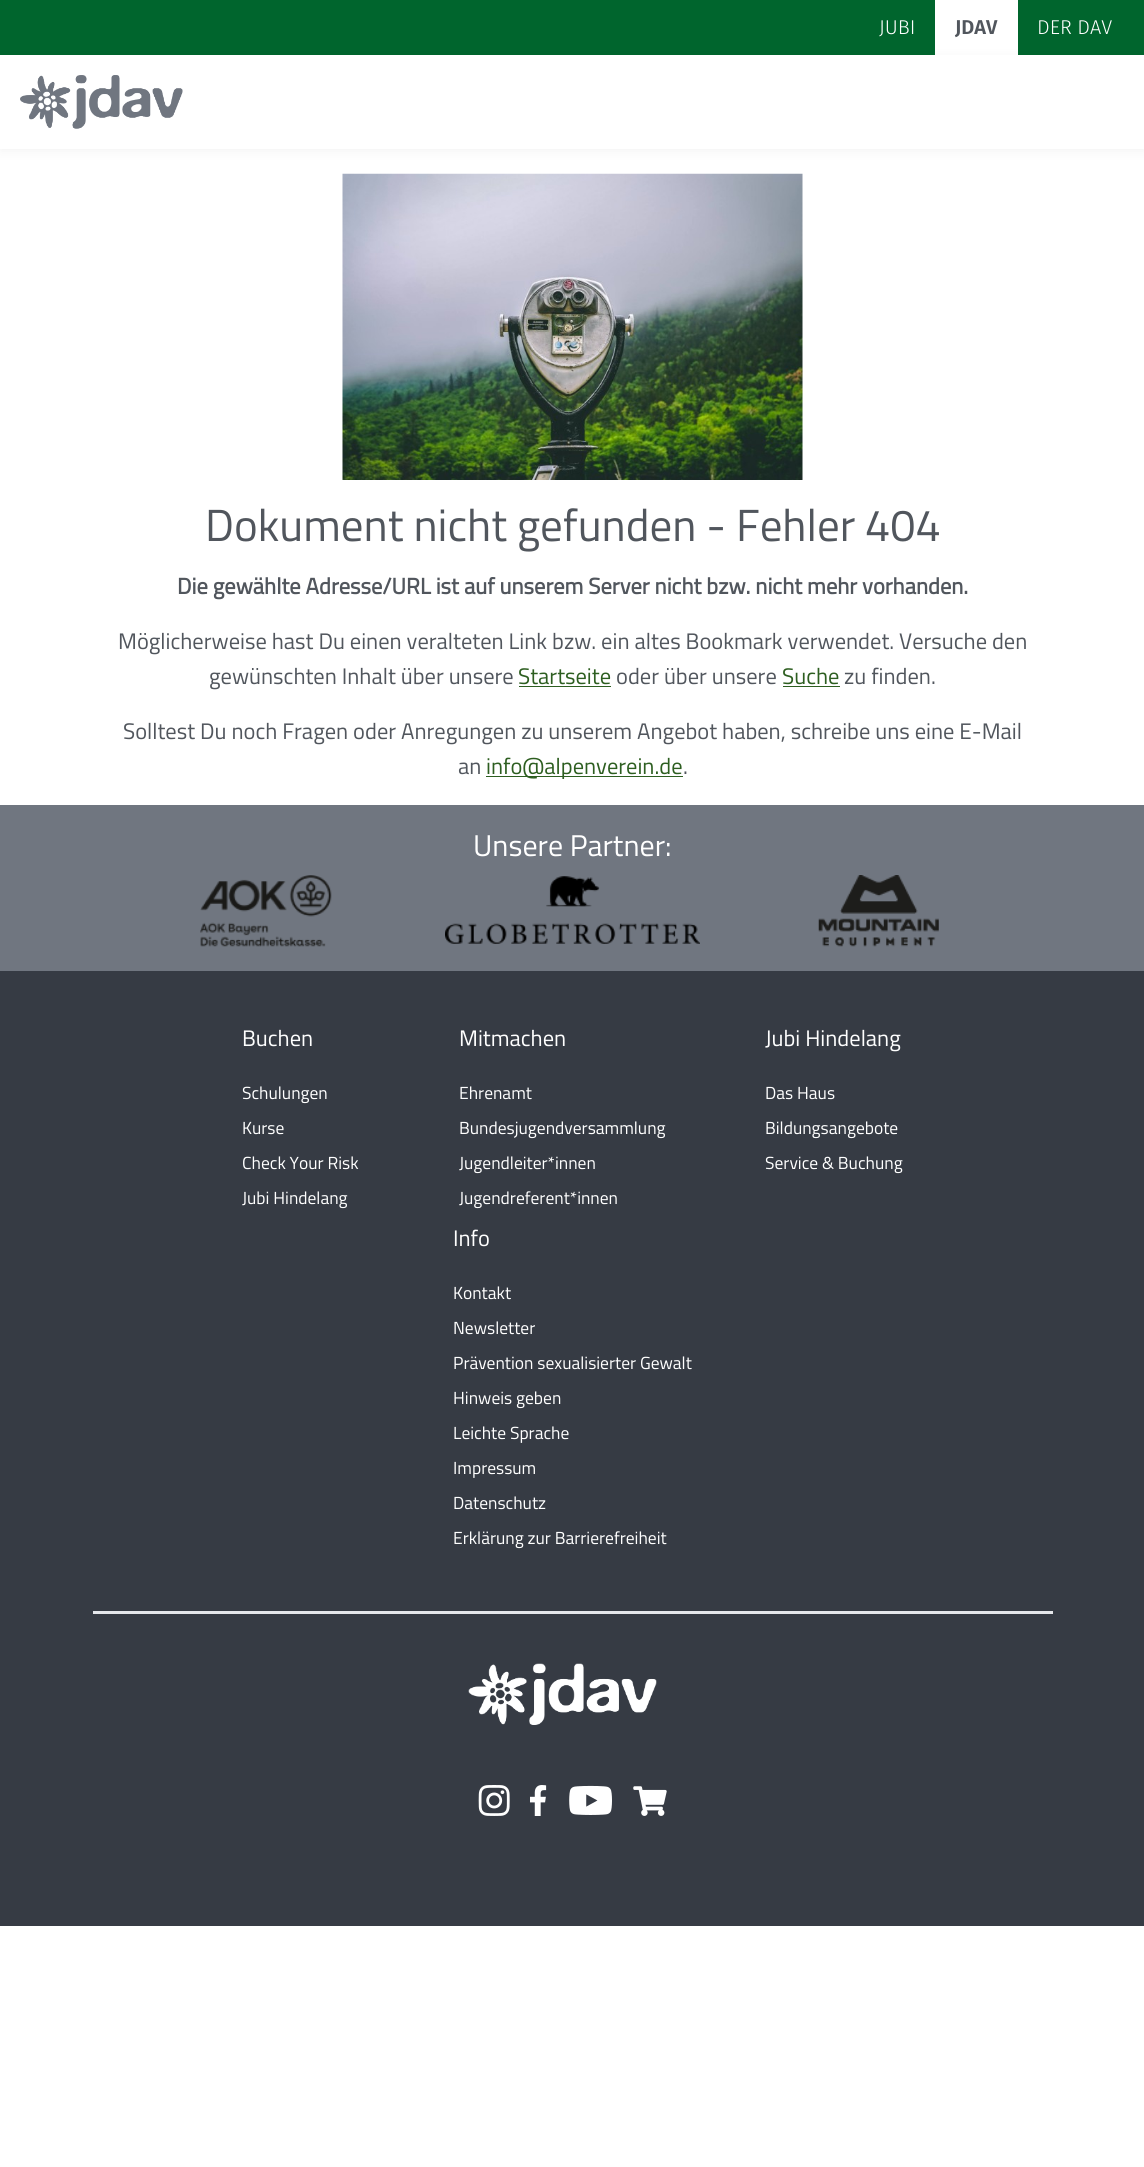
#include <cairo.h>
#include <math.h>
#include <stddef.h>

static cairo_t *ctx;

static void use_color(int r, int g, int b) {
    cairo_set_source_rgb(ctx, r / 255.0, g / 255.0, b / 255.0);
}

static void round_rect(double x, double y, double w, double h, double r) {
    cairo_new_sub_path(ctx);
    cairo_arc(ctx, x + w - r, y + h - r, r, 0, M_PI / 2);
    cairo_arc(ctx, x + r, y + h - r, r, M_PI / 2, M_PI);
    cairo_arc(ctx, x + r, y + r, r, M_PI, 1.5 * M_PI);
    cairo_arc(ctx, x + w - r, y + r, r, 1.5 * M_PI, 2 * M_PI);
    cairo_close_path(ctx);
}

static void shadow(double x, double y, double w, double h, double r, double blur, double alpha) {
    cairo_push_group_with_content(ctx, CAIRO_CONTENT_ALPHA);
    cairo_set_operator(ctx, CAIRO_OPERATOR_SOURCE);
    for (int i = 15; i >= -15 && fmin(w, h) + blur * i / 3 > 0; i -= 2) {
        double e = blur * i / 6;
        cairo_set_source_rgba(ctx, 0, 0, 0, alpha * erfc((i - 1) / 8.5) / 2);
        round_rect(x - e, y - e, w + 2 * e, h + 2 * e, fmax(0, fmin(r + e + blur * .6, fmin(w, h) / 2 + e)));
        cairo_fill(ctx);
    }
    cairo_pattern_t *soft = cairo_pop_group(ctx);
    cairo_mask(ctx, soft);
    cairo_pattern_destroy(soft);
}

static void picture(const char *path, double x, double y, double w, double h) {
    cairo_surface_t *image = cairo_image_surface_create_from_png(path);
    cairo_save(ctx);
    cairo_set_source_surface(ctx, image, x, y);
    cairo_rectangle(ctx, x, y, w, h);
    cairo_fill(ctx);
    cairo_restore(ctx);
    cairo_surface_destroy(image);
}

int main(void) {
    cairo_surface_t *surface = cairo_image_surface_create(CAIRO_FORMAT_RGB24, 1144, 2167);
    ctx = cairo_create(surface);
    cairo_font_options_t *options = cairo_font_options_create();
    cairo_font_options_set_hint_metrics(options, CAIRO_HINT_METRICS_OFF);
    cairo_font_options_set_hint_style(options, CAIRO_HINT_STYLE_NONE);
    cairo_set_font_options(ctx, options);
    cairo_set_miter_limit(ctx, 4);
    use_color(255, 255, 255);
    cairo_paint(ctx);
    use_color(0, 101, 45);
    cairo_rectangle(ctx, 0, 0, 1144, 55);
    cairo_fill(ctx);
    cairo_select_font_face(ctx, "Fira Sans Light", CAIRO_FONT_SLANT_NORMAL, CAIRO_FONT_WEIGHT_NORMAL);
    cairo_set_font_size(ctx, 20);
    use_color(255, 255, 255);
    cairo_move_to(ctx, 879, 34);
    cairo_show_text(ctx, "JUBI");
    cairo_rectangle(ctx, 935, 0, 83, 55);
    cairo_fill(ctx);
    cairo_select_font_face(ctx, "Fira Sans SemiBold", CAIRO_FONT_SLANT_NORMAL, CAIRO_FONT_WEIGHT_NORMAL);
    use_color(81, 86, 93);
    cairo_move_to(ctx, 955, 34);
    cairo_show_text(ctx, "JDAV");
    cairo_select_font_face(ctx, "Fira Sans Light", CAIRO_FONT_SLANT_NORMAL, CAIRO_FONT_WEIGHT_NORMAL);
    use_color(255, 255, 255);
    cairo_move_to(ctx, 1037, 34);
    cairo_show_text(ctx, "DER DAV");
    use_color(0, 0, 0);
    shadow(0, 58, 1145, 93, 0, 6, 0.05);
    use_color(255, 255, 255);
    cairo_rectangle(ctx, 0, 55, 1144, 94);
    cairo_fill(ctx);
    picture("img1.png", 20, 75, 163, 54);
    picture("img2.png", 342, 173, 461, 307);
    cairo_select_font_face(ctx, "Titillium Web", CAIRO_FONT_SLANT_NORMAL, CAIRO_FONT_WEIGHT_NORMAL);
    cairo_set_font_size(ctx, 45);
    use_color(81, 86, 93);
    cairo_move_to(ctx, 205, 541);
    cairo_show_text(ctx, "Dokument nicht gefunden - Fehler 404");
    cairo_select_font_face(ctx, "Titillium Web", CAIRO_FONT_SLANT_NORMAL, CAIRO_FONT_WEIGHT_BOLD);
    cairo_set_font_size(ctx, 22.5);
    cairo_move_to(ctx, 177, 594);
    cairo_show_text(ctx, "Die gewählte Adresse/URL ist auf unserem Server nicht bzw. nicht mehr vorhanden.");
    cairo_select_font_face(ctx, "Titillium Web", CAIRO_FONT_SLANT_NORMAL, CAIRO_FONT_WEIGHT_NORMAL);
    cairo_move_to(ctx, 118, 649);
    cairo_show_text(ctx, "Möglicherweise hast Du einen veralteten Link bzw. ein altes Bookmark verwendet. Versuche den");
    cairo_move_to(ctx, 209, 684);
    cairo_show_text(ctx, "gewünschten Inhalt über unsere");
    use_color(45, 94, 32);
    cairo_move_to(ctx, 518, 684);
    cairo_show_text(ctx, "Startseite");
    cairo_rectangle(ctx, 519, 686, 92, 1);
    cairo_fill(ctx);
    use_color(81, 86, 93);
    cairo_move_to(ctx, 616, 684);
    cairo_show_text(ctx, "oder über unsere");
    use_color(45, 94, 32);
    cairo_move_to(ctx, 782, 684);
    cairo_show_text(ctx, "Suche");
    cairo_rectangle(ctx, 783, 686, 57, 1);
    cairo_fill(ctx);
    use_color(81, 86, 93);
    cairo_move_to(ctx, 844, 684);
    cairo_show_text(ctx, "zu finden.");
    cairo_move_to(ctx, 123, 739);
    cairo_show_text(ctx, "Solltest Du noch Fragen oder Anregungen zu unserem Angebot haben, schreibe uns eine E-Mail");
    cairo_move_to(ctx, 458, 774);
    cairo_show_text(ctx, "an");
    use_color(45, 94, 32);
    cairo_rectangle(ctx, 486, 776, 197, 1);
    cairo_fill(ctx);
    cairo_move_to(ctx, 486, 774);
    cairo_show_text(ctx, "info@alpenverein.de");
    use_color(81, 86, 93);
    cairo_move_to(ctx, 683, 774);
    cairo_show_text(ctx, ".");
    use_color(112, 118, 128);
    cairo_rectangle(ctx, 0, 805, 1144, 166);
    cairo_fill(ctx);
    cairo_set_font_size(ctx, 30);
    use_color(255, 255, 255);
    cairo_move_to(ctx, 473, 856);
    cairo_show_text(ctx, "Unsere Partner:");
    picture("img3.png", 200, 875, 132, 72);
    picture("img4.png", 445, 876, 255, 68);
    picture("img5.png", 818, 875, 121, 72);
    use_color(54, 59, 68);
    cairo_rectangle(ctx, 0, 971, 1144, 955);
    cairo_fill(ctx);
    cairo_set_font_size(ctx, 22.5);
    use_color(255, 255, 255);
    cairo_move_to(ctx, 242, 1046);
    cairo_show_text(ctx, "Buchen");
    cairo_set_font_size(ctx, 17.5);
    cairo_move_to(ctx, 242, 1099);
    cairo_show_text(ctx, "Schulungen");
    cairo_move_to(ctx, 242, 1134);
    cairo_show_text(ctx, "Kurse");
    cairo_move_to(ctx, 242, 1169);
    cairo_show_text(ctx, "Check Your Risk");
    cairo_move_to(ctx, 242, 1204);
    cairo_show_text(ctx, "Jubi Hindelang");
    cairo_set_font_size(ctx, 22.5);
    cairo_move_to(ctx, 459, 1046);
    cairo_show_text(ctx, "Mitmachen");
    cairo_set_font_size(ctx, 17.5);
    cairo_move_to(ctx, 459, 1099);
    cairo_show_text(ctx, "Ehrenamt");
    cairo_move_to(ctx, 459, 1134);
    cairo_show_text(ctx, "Bundesjugendversammlung");
    cairo_move_to(ctx, 459, 1169);
    cairo_show_text(ctx, "Jugendleiter*innen");
    cairo_move_to(ctx, 459, 1204);
    cairo_show_text(ctx, "Jugendreferent*innen");
    cairo_set_font_size(ctx, 22.5);
    cairo_move_to(ctx, 765, 1046);
    cairo_show_text(ctx, "Jubi Hindelang");
    cairo_set_font_size(ctx, 17.5);
    cairo_move_to(ctx, 765, 1099);
    cairo_show_text(ctx, "Das Haus");
    cairo_move_to(ctx, 765, 1134);
    cairo_show_text(ctx, "Bildungsangebote");
    cairo_move_to(ctx, 765, 1169);
    cairo_show_text(ctx, "Service & Buchung");
    cairo_set_font_size(ctx, 22.5);
    cairo_move_to(ctx, 453, 1246);
    cairo_show_text(ctx, "Info");
    cairo_set_font_size(ctx, 17.5);
    cairo_move_to(ctx, 453, 1299);
    cairo_show_text(ctx, "Kontakt");
    cairo_move_to(ctx, 453, 1334);
    cairo_show_text(ctx, "Newsletter");
    cairo_move_to(ctx, 453, 1369);
    cairo_show_text(ctx, "Prävention sexualisierter Gewalt");
    cairo_move_to(ctx, 453, 1404);
    cairo_show_text(ctx, "Hinweis geben");
    cairo_move_to(ctx, 453, 1439);
    cairo_show_text(ctx, "Leichte Sprache");
    cairo_move_to(ctx, 453, 1474);
    cairo_show_text(ctx, "Impressum");
    cairo_move_to(ctx, 453, 1509);
    cairo_show_text(ctx, "Datenschutz");
    cairo_move_to(ctx, 453, 1544);
    cairo_show_text(ctx, "Erklärung zur Barrierefreiheit");
    use_color(229, 231, 235);
    cairo_rectangle(ctx, 93, 1611, 960, 3);
    cairo_fill(ctx);
    picture("img6.png", 468, 1663, 189, 62);
    picture("img7.png", 478, 1785, 32, 31);
    picture("img8.png", 530, 1785, 17, 31);
    picture("img9.png", 569, 1785, 43, 30);
    picture("img10.png", 633, 1786, 34, 30);
    cairo_surface_write_to_png(surface, "result.png");
    cairo_font_options_destroy(options);
    cairo_destroy(ctx);
    cairo_surface_destroy(surface);
    return 0;
}
